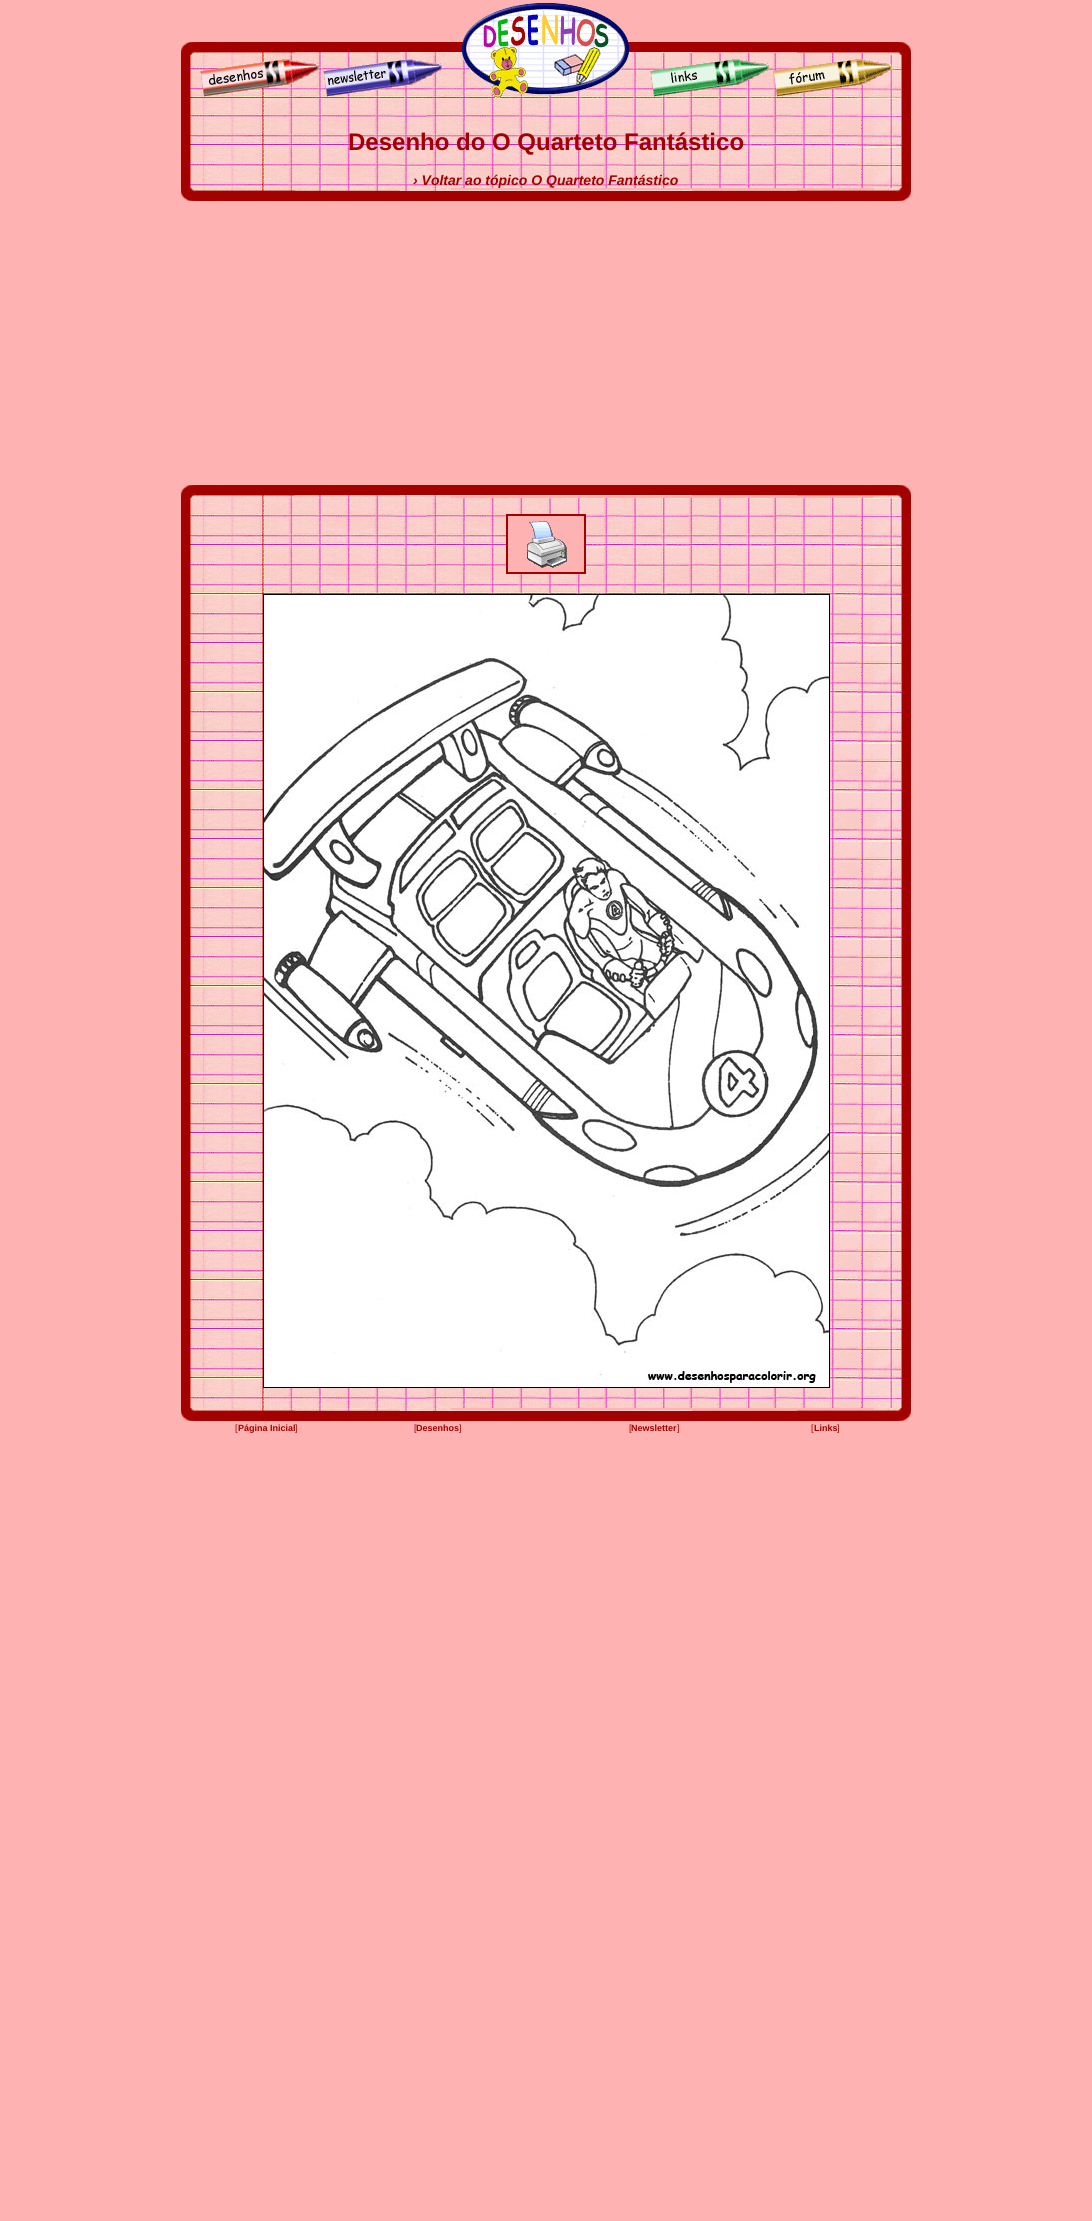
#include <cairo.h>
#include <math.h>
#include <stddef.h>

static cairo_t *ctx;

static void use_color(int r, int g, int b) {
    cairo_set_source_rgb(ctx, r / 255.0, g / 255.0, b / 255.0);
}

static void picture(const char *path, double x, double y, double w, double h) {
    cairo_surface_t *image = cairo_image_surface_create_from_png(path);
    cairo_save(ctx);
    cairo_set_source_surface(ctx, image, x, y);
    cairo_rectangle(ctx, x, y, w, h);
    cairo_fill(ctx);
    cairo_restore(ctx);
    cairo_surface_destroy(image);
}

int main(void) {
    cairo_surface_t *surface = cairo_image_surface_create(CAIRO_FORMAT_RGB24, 1092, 2221);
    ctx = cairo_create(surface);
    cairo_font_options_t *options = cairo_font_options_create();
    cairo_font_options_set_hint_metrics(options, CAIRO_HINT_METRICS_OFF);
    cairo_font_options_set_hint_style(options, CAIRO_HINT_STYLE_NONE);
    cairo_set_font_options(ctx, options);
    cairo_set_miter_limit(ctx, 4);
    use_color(254, 178, 178);
    cairo_paint(ctx);
    picture("img1.png", 181, 52, 730, 46);
    picture("img2.png", 451, 2, 190, 96);
    picture("img3.png", 181, 40, 270, 15);
    picture("img4.png", 641, 40, 270, 15);
    picture("img5.png", 200, 59, 242, 38);
    picture("img6.png", 650, 59, 242, 38);
    picture("img7.png", 181, 98, 730, 90);
    cairo_select_font_face(ctx, "Liberation Sans", CAIRO_FONT_SLANT_NORMAL, CAIRO_FONT_WEIGHT_BOLD);
    cairo_set_font_size(ctx, 24);
    use_color(163, 0, 0);
    cairo_move_to(ctx, 348, 150);
    cairo_show_text(ctx, "Desenho do O Quarteto Fantástico");
    cairo_select_font_face(ctx, "Liberation Sans", CAIRO_FONT_SLANT_ITALIC, CAIRO_FONT_WEIGHT_BOLD);
    cairo_set_font_size(ctx, 14);
    cairo_move_to(ctx, 413, 185);
    cairo_show_text(ctx, "› Voltar ao tópico O Quarteto Fantástico");
    picture("img8.png", 181, 188, 730, 13);
    picture("img9.png", 181, 485, 730, 13);
    picture("img10.png", 181, 498, 730, 910);
    picture("img11.png", 506, 514, 80, 60);
    picture("img12.png", 263, 594, 567, 794);
    picture("img8.png", 181, 1408, 730, 13);
    cairo_select_font_face(ctx, "Liberation Sans", CAIRO_FONT_SLANT_NORMAL, CAIRO_FONT_WEIGHT_NORMAL);
    cairo_set_font_size(ctx, 9);
    cairo_move_to(ctx, 235, 1431);
    cairo_show_text(ctx, "[");
    cairo_select_font_face(ctx, "Liberation Sans", CAIRO_FONT_SLANT_NORMAL, CAIRO_FONT_WEIGHT_BOLD);
    cairo_move_to(ctx, 238, 1431);
    cairo_show_text(ctx, "Página Inicial");
    cairo_select_font_face(ctx, "Liberation Sans", CAIRO_FONT_SLANT_NORMAL, CAIRO_FONT_WEIGHT_NORMAL);
    cairo_move_to(ctx, 295, 1431);
    cairo_show_text(ctx, "]");
    cairo_move_to(ctx, 414, 1431);
    cairo_show_text(ctx, "[");
    cairo_select_font_face(ctx, "Liberation Sans", CAIRO_FONT_SLANT_NORMAL, CAIRO_FONT_WEIGHT_BOLD);
    cairo_move_to(ctx, 416, 1431);
    cairo_show_text(ctx, "Desenhos");
    cairo_select_font_face(ctx, "Liberation Sans", CAIRO_FONT_SLANT_NORMAL, CAIRO_FONT_WEIGHT_NORMAL);
    cairo_move_to(ctx, 459, 1431);
    cairo_show_text(ctx, "]");
    cairo_move_to(ctx, 629, 1431);
    cairo_show_text(ctx, "[");
    cairo_select_font_face(ctx, "Liberation Sans", CAIRO_FONT_SLANT_NORMAL, CAIRO_FONT_WEIGHT_BOLD);
    cairo_move_to(ctx, 631, 1431);
    cairo_show_text(ctx, "Newsletter");
    cairo_select_font_face(ctx, "Liberation Sans", CAIRO_FONT_SLANT_NORMAL, CAIRO_FONT_WEIGHT_NORMAL);
    cairo_move_to(ctx, 677, 1431);
    cairo_show_text(ctx, "]");
    cairo_move_to(ctx, 811, 1431);
    cairo_show_text(ctx, "[");
    cairo_select_font_face(ctx, "Liberation Sans", CAIRO_FONT_SLANT_NORMAL, CAIRO_FONT_WEIGHT_BOLD);
    cairo_move_to(ctx, 814, 1431);
    cairo_show_text(ctx, "Links");
    cairo_select_font_face(ctx, "Liberation Sans", CAIRO_FONT_SLANT_NORMAL, CAIRO_FONT_WEIGHT_NORMAL);
    cairo_move_to(ctx, 837, 1431);
    cairo_show_text(ctx, "]");
    cairo_surface_write_to_png(surface, "result.png");
    cairo_font_options_destroy(options);
    cairo_destroy(ctx);
    cairo_surface_destroy(surface);
    return 0;
}
